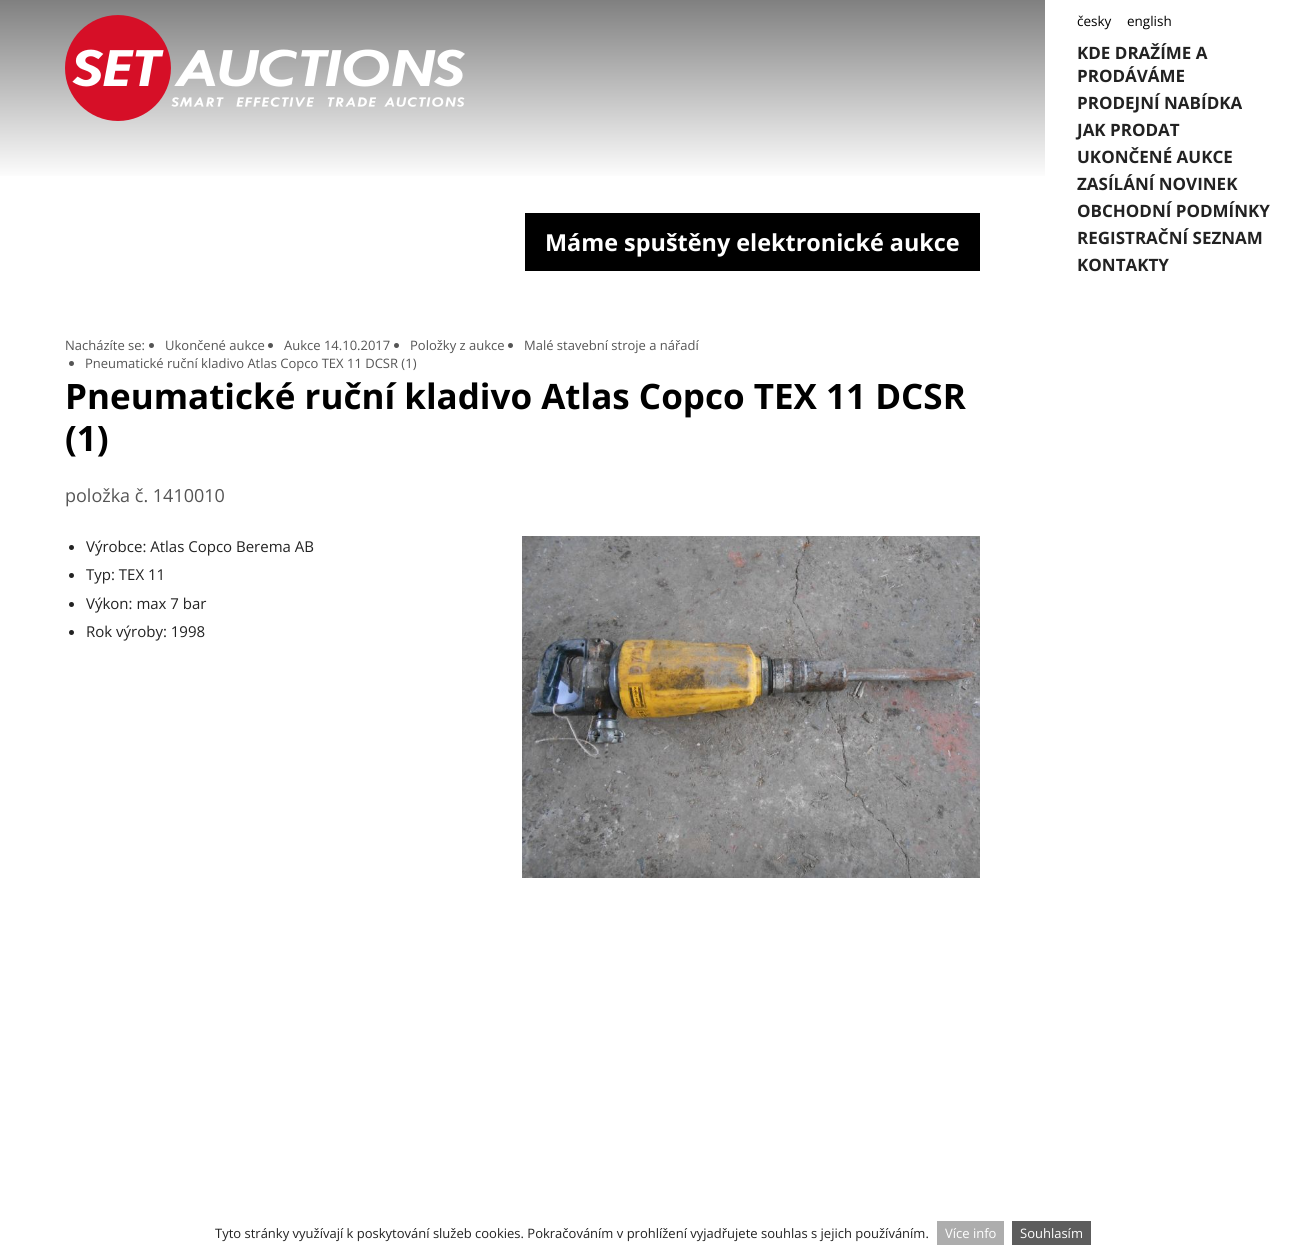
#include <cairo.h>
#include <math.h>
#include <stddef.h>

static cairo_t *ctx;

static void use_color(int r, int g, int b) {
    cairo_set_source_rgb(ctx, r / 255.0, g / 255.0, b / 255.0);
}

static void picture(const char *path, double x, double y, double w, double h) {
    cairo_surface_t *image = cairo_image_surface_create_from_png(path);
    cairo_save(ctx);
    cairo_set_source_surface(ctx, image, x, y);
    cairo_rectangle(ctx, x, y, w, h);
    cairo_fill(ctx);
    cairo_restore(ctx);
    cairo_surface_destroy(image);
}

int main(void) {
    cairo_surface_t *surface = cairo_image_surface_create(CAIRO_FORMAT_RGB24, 1306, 1255);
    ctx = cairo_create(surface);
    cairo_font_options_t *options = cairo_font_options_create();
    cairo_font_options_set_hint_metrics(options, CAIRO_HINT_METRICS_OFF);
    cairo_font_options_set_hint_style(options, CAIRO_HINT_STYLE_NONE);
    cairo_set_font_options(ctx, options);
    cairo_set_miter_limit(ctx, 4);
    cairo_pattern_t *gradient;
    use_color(255, 255, 255);
    cairo_paint(ctx);
    gradient = cairo_pattern_create_linear(523, 0, 523, 180);
    cairo_pattern_add_color_stop_rgba(gradient, 0, 0.502, 0.502, 0.502, 1);
    cairo_pattern_add_color_stop_rgba(gradient, 1, 1, 1, 1, 1);
    cairo_set_source(ctx, gradient);
    cairo_pattern_destroy(gradient);
    cairo_rectangle(ctx, 0, 0, 1045, 176);
    cairo_fill(ctx);
    picture("img1.png", 65, 15, 400, 106);
    use_color(0, 0, 0);
    cairo_rectangle(ctx, 525, 213, 455, 58);
    cairo_fill(ctx);
    cairo_select_font_face(ctx, "Open Sans", CAIRO_FONT_SLANT_NORMAL, CAIRO_FONT_WEIGHT_BOLD);
    cairo_set_font_size(ctx, 23.4);
    use_color(255, 255, 255);
    cairo_move_to(ctx, 545, 251);
    cairo_show_text(ctx, "Máme spuštěny elektronické aukce");
    cairo_select_font_face(ctx, "Open Sans", CAIRO_FONT_SLANT_NORMAL, CAIRO_FONT_WEIGHT_NORMAL);
    cairo_set_font_size(ctx, 13.5);
    use_color(0, 0, 0);
    cairo_move_to(ctx, 1077, 26);
    cairo_show_text(ctx, "česky");
    cairo_move_to(ctx, 1127, 26);
    cairo_show_text(ctx, "english");
    cairo_select_font_face(ctx, "Open Sans", CAIRO_FONT_SLANT_NORMAL, CAIRO_FONT_WEIGHT_BOLD);
    cairo_set_font_size(ctx, 17);
    use_color(34, 34, 34);
    cairo_move_to(ctx, 1077, 59);
    cairo_show_text(ctx, "KDE DRAŽÍME A");
    cairo_move_to(ctx, 1077, 82);
    cairo_show_text(ctx, "PRODÁVÁME");
    cairo_move_to(ctx, 1077, 109);
    cairo_show_text(ctx, "PRODEJNÍ NABÍDKA");
    cairo_move_to(ctx, 1077, 136);
    cairo_show_text(ctx, "JAK PRODAT");
    cairo_move_to(ctx, 1077, 163);
    cairo_show_text(ctx, "UKONČENÉ AUKCE");
    cairo_move_to(ctx, 1077, 190);
    cairo_show_text(ctx, "ZASÍLÁNÍ NOVINEK");
    cairo_move_to(ctx, 1077, 217);
    cairo_show_text(ctx, "OBCHODNÍ PODMÍNKY");
    cairo_move_to(ctx, 1077, 244);
    cairo_show_text(ctx, "REGISTRAČNÍ SEZNAM");
    cairo_move_to(ctx, 1077, 271);
    cairo_show_text(ctx, "KONTAKTY");
    cairo_select_font_face(ctx, "Open Sans", CAIRO_FONT_SLANT_NORMAL, CAIRO_FONT_WEIGHT_NORMAL);
    cairo_set_font_size(ctx, 13);
    use_color(85, 85, 85);
    cairo_move_to(ctx, 65, 350);
    cairo_show_text(ctx, "Nacházíte se:");
    cairo_new_path(ctx);
    cairo_arc(ctx, 151.5, 345.5, 2.5, 0, 2 * M_PI);
    cairo_fill(ctx);
    cairo_move_to(ctx, 165, 350);
    cairo_show_text(ctx, "Ukončené aukce");
    cairo_new_path(ctx);
    cairo_arc(ctx, 270.5, 345.5, 2.5, 0, 2 * M_PI);
    cairo_fill(ctx);
    cairo_move_to(ctx, 284, 350);
    cairo_show_text(ctx, "Aukce 14.10.2017");
    cairo_new_path(ctx);
    cairo_arc(ctx, 396.5, 345.5, 2.5, 0, 2 * M_PI);
    cairo_fill(ctx);
    cairo_move_to(ctx, 410, 350);
    cairo_show_text(ctx, "Položky z aukce");
    cairo_new_path(ctx);
    cairo_arc(ctx, 510.5, 345.5, 2.5, 0, 2 * M_PI);
    cairo_fill(ctx);
    cairo_move_to(ctx, 524, 350);
    cairo_show_text(ctx, "Malé stavební stroje a nářadí");
    cairo_new_path(ctx);
    cairo_arc(ctx, 71.5, 363.5, 2.5, 0, 2 * M_PI);
    cairo_fill(ctx);
    cairo_move_to(ctx, 85, 368);
    cairo_show_text(ctx, "Pneumatické ruční kladivo Atlas Copco TEX 11 DCSR (1)");
    cairo_select_font_face(ctx, "Open Sans", CAIRO_FONT_SLANT_NORMAL, CAIRO_FONT_WEIGHT_BOLD);
    cairo_set_font_size(ctx, 35);
    use_color(0, 0, 0);
    cairo_move_to(ctx, 65, 409);
    cairo_show_text(ctx, "Pneumatické ruční kladivo Atlas Copco TEX 11 DCSR");
    cairo_move_to(ctx, 65, 451);
    cairo_show_text(ctx, "(1)");
    cairo_select_font_face(ctx, "Open Sans", CAIRO_FONT_SLANT_NORMAL, CAIRO_FONT_WEIGHT_NORMAL);
    cairo_set_font_size(ctx, 18);
    use_color(85, 85, 85);
    cairo_move_to(ctx, 65, 502);
    cairo_show_text(ctx, "položka č. 1410010");
    use_color(34, 34, 34);
    cairo_new_path(ctx);
    cairo_arc(ctx, 71.5, 547.5, 2.5, 0, 2 * M_PI);
    cairo_fill(ctx);
    cairo_set_font_size(ctx, 15);
    cairo_move_to(ctx, 86, 552);
    cairo_show_text(ctx, "Výrobce: Atlas Copco Berema AB");
    cairo_new_path(ctx);
    cairo_arc(ctx, 71.5, 575.5, 2.5, 0, 2 * M_PI);
    cairo_fill(ctx);
    cairo_move_to(ctx, 86, 580);
    cairo_show_text(ctx, "Typ: TEX 11");
    cairo_new_path(ctx);
    cairo_arc(ctx, 71.5, 604.5, 2.5, 0, 2 * M_PI);
    cairo_fill(ctx);
    cairo_move_to(ctx, 86, 609);
    cairo_show_text(ctx, "Výkon: max 7 bar");
    cairo_new_path(ctx);
    cairo_arc(ctx, 71.5, 632.5, 2.5, 0, 2 * M_PI);
    cairo_fill(ctx);
    cairo_move_to(ctx, 86, 637);
    cairo_show_text(ctx, "Rok výroby: 1998");
    picture("img2.png", 522, 536, 458, 342);
    cairo_set_font_size(ctx, 13);
    cairo_move_to(ctx, 215, 1238);
    cairo_show_text(ctx, "Tyto stránky využívají k poskytování služeb cookies. Pokračováním v prohlížení vyjadřujete souhlas s jejich používáním.");
    use_color(173, 173, 173);
    cairo_rectangle(ctx, 937, 1221, 67, 24);
    cairo_fill(ctx);
    use_color(255, 255, 255);
    cairo_move_to(ctx, 945, 1238);
    cairo_show_text(ctx, "Více info");
    use_color(93, 93, 93);
    cairo_rectangle(ctx, 1012, 1221, 79, 24);
    cairo_fill(ctx);
    use_color(255, 255, 255);
    cairo_move_to(ctx, 1020, 1238);
    cairo_show_text(ctx, "Souhlasím");
    cairo_surface_write_to_png(surface, "result.png");
    cairo_font_options_destroy(options);
    cairo_destroy(ctx);
    cairo_surface_destroy(surface);
    return 0;
}
